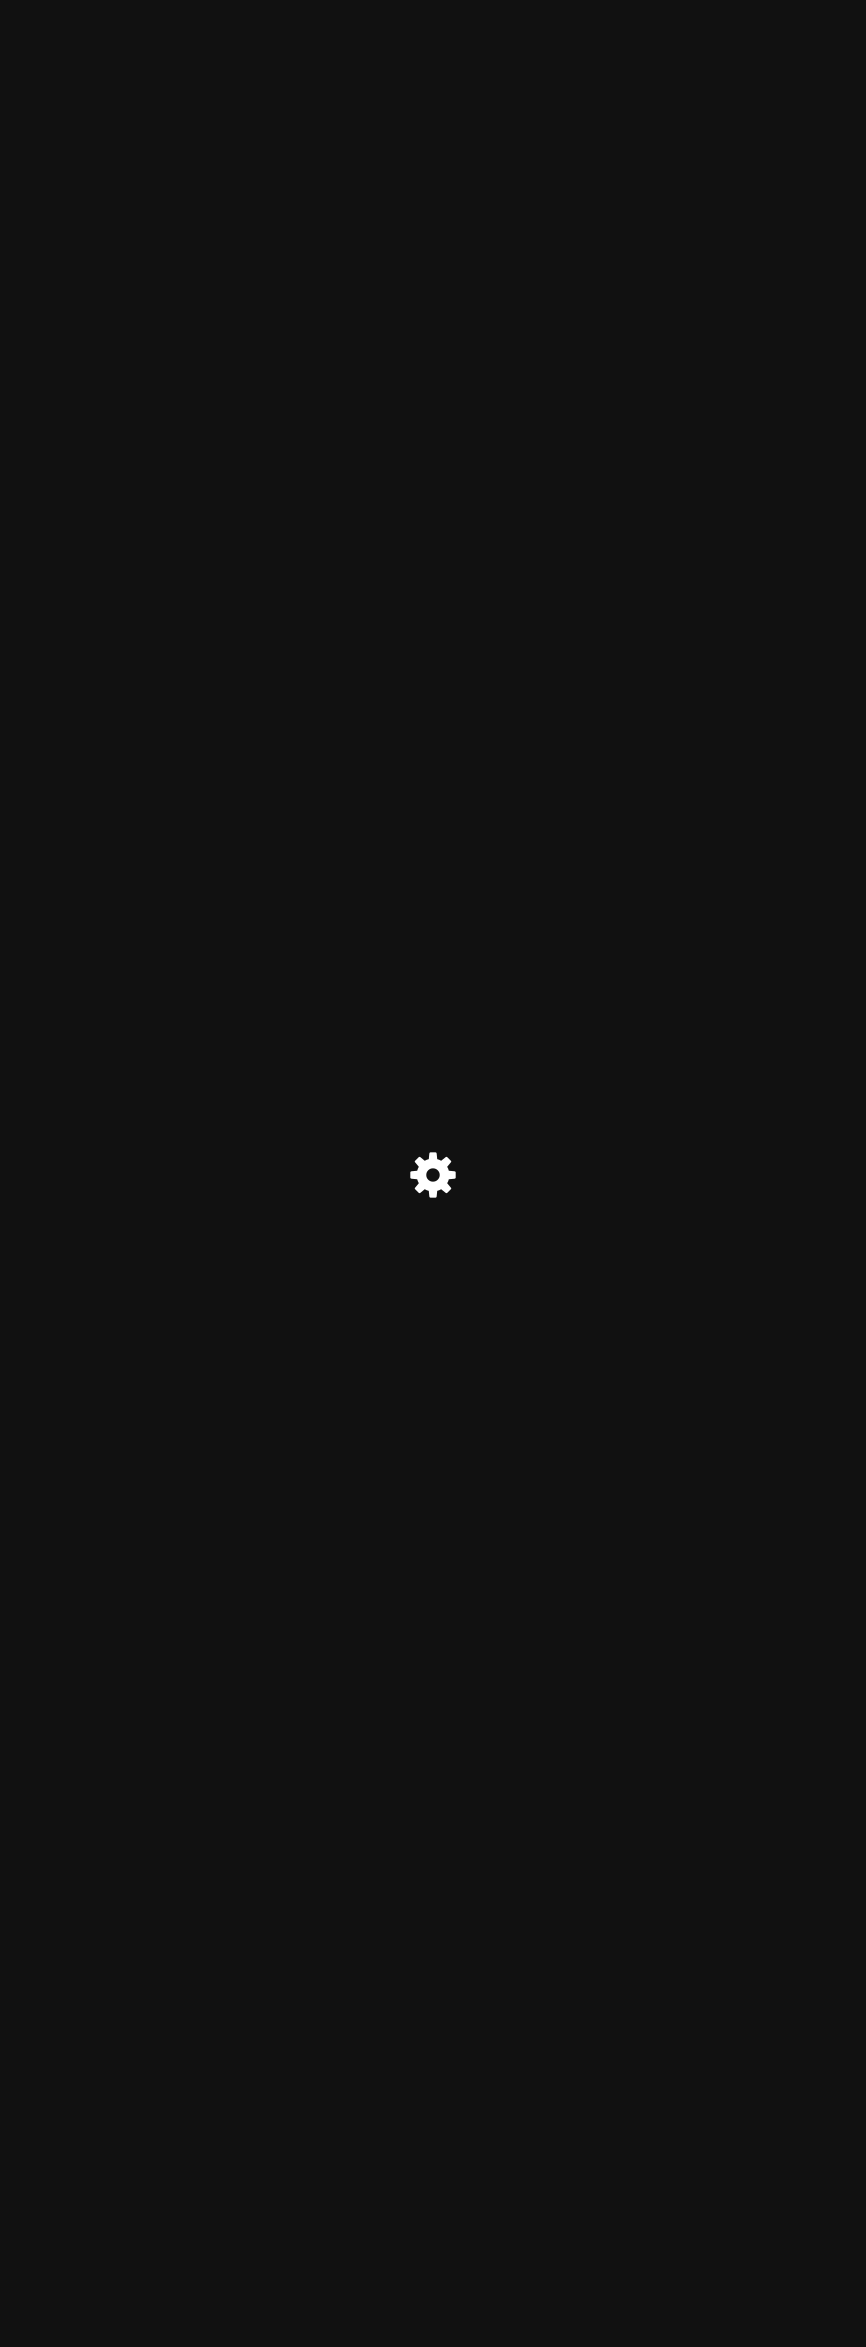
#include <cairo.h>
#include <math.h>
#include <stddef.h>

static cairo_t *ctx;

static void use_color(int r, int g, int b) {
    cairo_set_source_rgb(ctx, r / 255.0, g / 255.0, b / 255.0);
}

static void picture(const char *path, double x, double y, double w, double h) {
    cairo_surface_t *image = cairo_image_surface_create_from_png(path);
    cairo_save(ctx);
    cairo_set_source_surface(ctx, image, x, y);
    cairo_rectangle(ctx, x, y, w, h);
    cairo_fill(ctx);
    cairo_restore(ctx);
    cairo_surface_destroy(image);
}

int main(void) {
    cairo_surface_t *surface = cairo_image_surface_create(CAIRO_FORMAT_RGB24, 866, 2347);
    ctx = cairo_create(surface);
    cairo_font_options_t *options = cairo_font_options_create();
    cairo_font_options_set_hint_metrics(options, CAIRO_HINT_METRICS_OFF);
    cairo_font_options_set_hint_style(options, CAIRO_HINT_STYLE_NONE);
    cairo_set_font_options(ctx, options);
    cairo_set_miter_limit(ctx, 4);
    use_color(17, 17, 17);
    cairo_paint(ctx);
    picture("img1.png", 410, 1152, 46, 46);
    cairo_surface_write_to_png(surface, "result.png");
    cairo_font_options_destroy(options);
    cairo_destroy(ctx);
    cairo_surface_destroy(surface);
    return 0;
}
